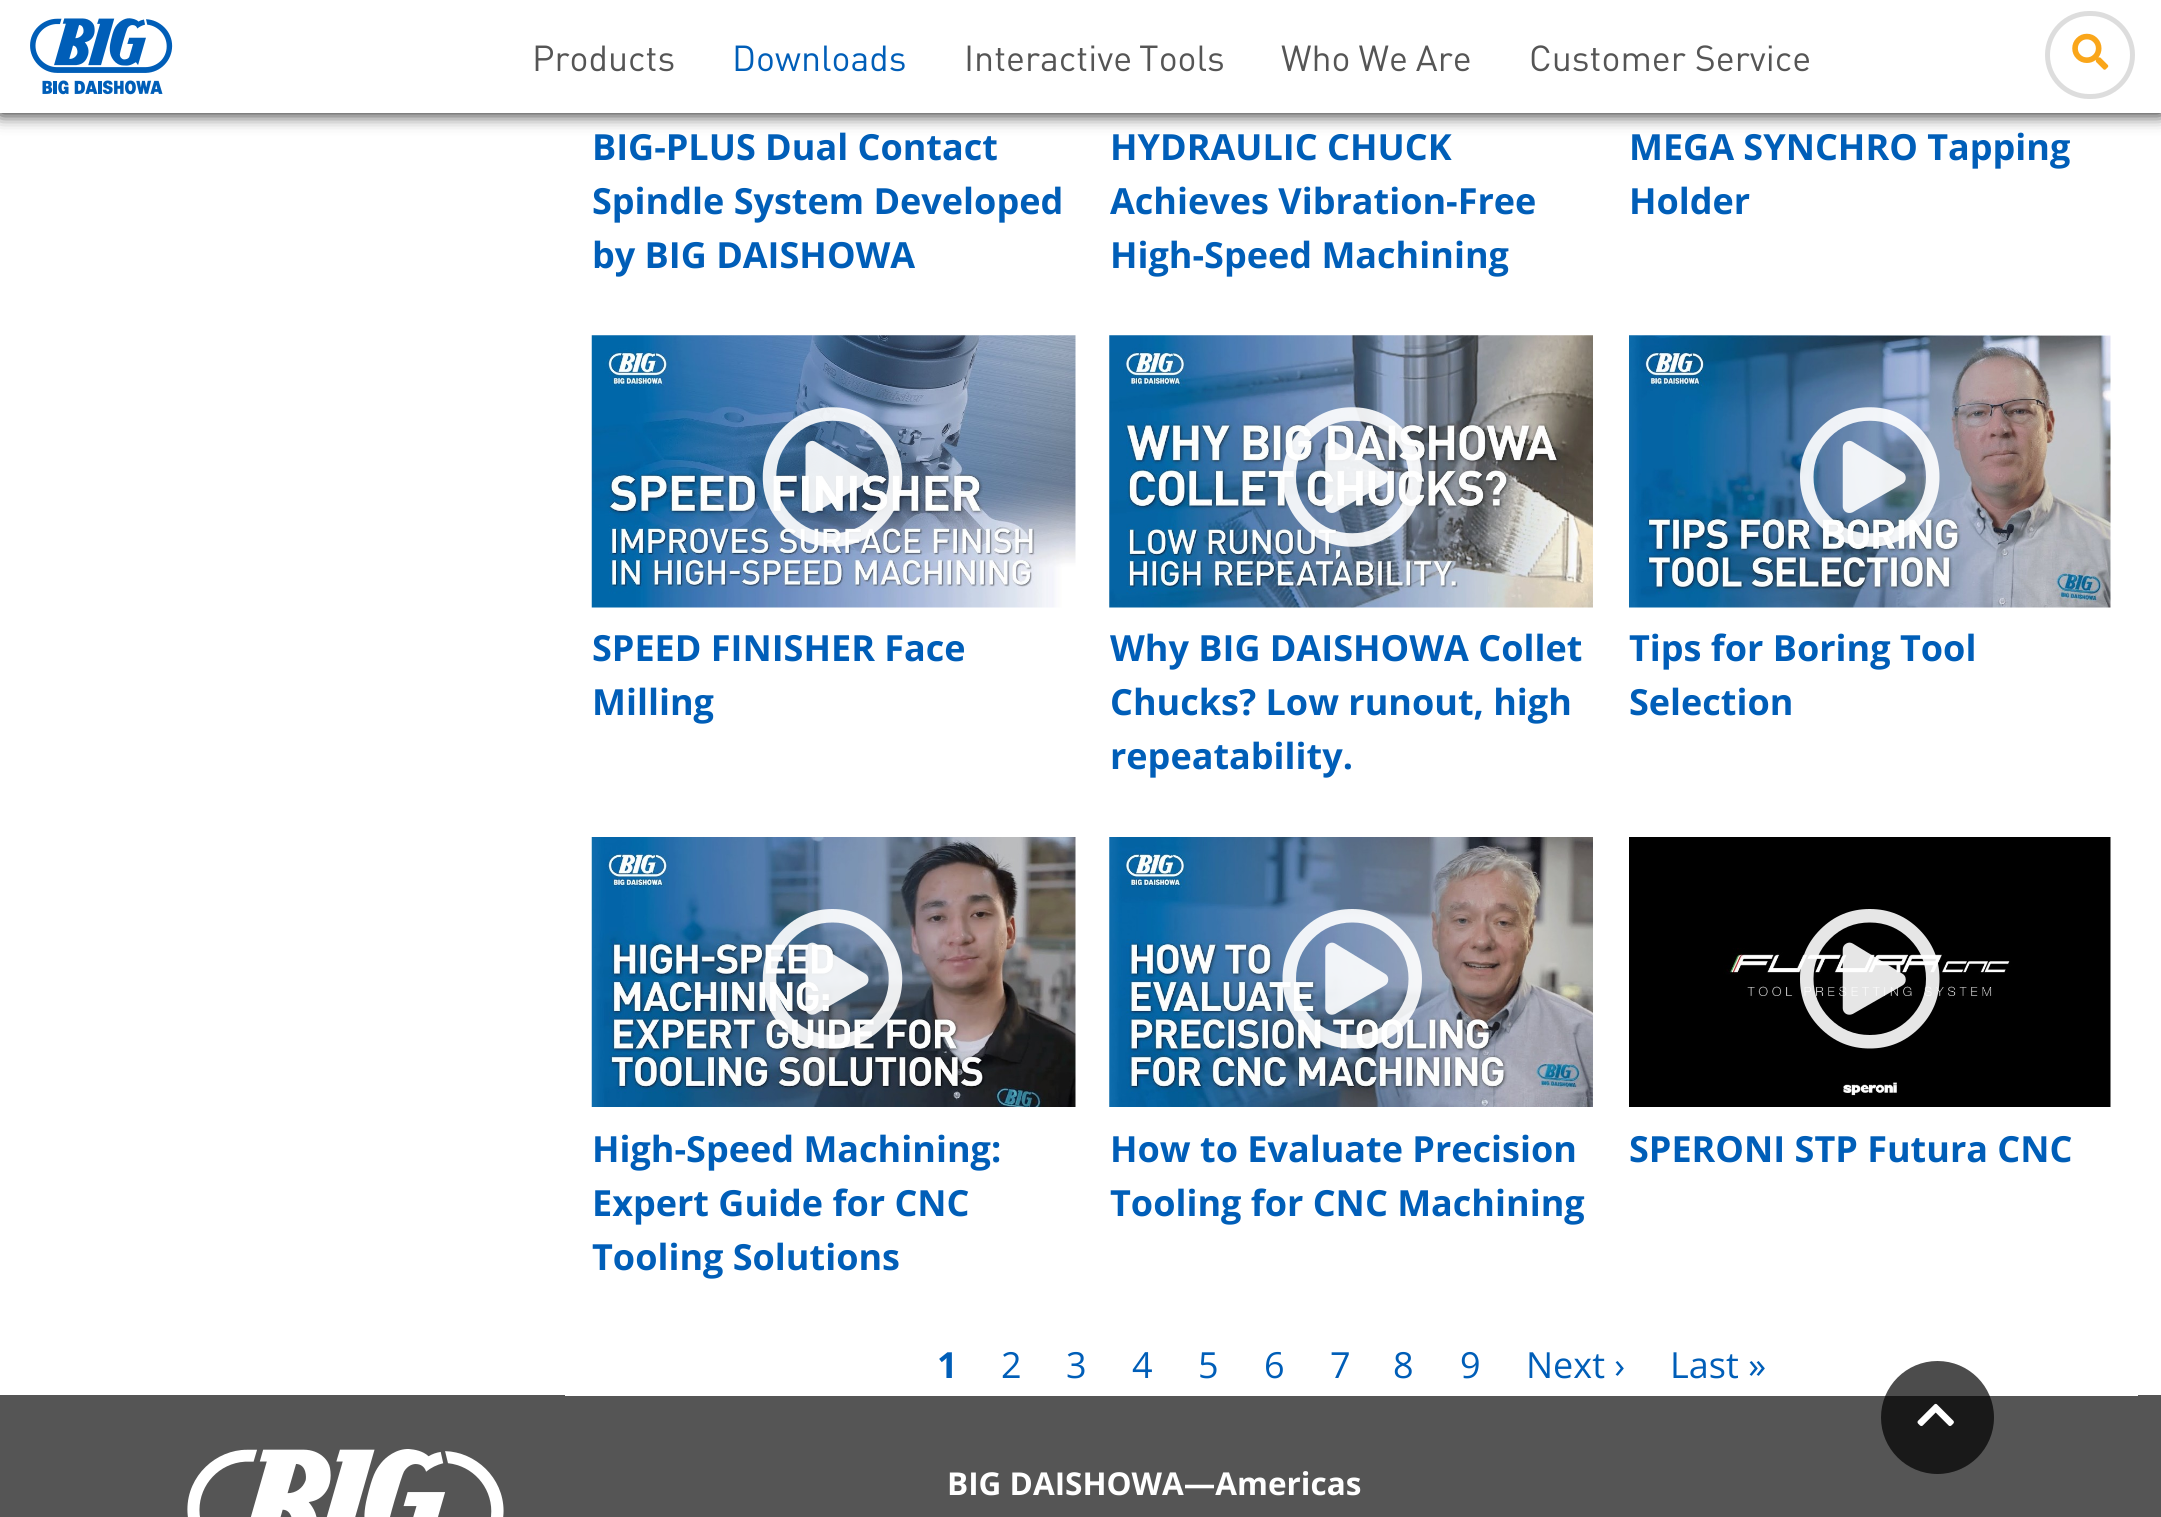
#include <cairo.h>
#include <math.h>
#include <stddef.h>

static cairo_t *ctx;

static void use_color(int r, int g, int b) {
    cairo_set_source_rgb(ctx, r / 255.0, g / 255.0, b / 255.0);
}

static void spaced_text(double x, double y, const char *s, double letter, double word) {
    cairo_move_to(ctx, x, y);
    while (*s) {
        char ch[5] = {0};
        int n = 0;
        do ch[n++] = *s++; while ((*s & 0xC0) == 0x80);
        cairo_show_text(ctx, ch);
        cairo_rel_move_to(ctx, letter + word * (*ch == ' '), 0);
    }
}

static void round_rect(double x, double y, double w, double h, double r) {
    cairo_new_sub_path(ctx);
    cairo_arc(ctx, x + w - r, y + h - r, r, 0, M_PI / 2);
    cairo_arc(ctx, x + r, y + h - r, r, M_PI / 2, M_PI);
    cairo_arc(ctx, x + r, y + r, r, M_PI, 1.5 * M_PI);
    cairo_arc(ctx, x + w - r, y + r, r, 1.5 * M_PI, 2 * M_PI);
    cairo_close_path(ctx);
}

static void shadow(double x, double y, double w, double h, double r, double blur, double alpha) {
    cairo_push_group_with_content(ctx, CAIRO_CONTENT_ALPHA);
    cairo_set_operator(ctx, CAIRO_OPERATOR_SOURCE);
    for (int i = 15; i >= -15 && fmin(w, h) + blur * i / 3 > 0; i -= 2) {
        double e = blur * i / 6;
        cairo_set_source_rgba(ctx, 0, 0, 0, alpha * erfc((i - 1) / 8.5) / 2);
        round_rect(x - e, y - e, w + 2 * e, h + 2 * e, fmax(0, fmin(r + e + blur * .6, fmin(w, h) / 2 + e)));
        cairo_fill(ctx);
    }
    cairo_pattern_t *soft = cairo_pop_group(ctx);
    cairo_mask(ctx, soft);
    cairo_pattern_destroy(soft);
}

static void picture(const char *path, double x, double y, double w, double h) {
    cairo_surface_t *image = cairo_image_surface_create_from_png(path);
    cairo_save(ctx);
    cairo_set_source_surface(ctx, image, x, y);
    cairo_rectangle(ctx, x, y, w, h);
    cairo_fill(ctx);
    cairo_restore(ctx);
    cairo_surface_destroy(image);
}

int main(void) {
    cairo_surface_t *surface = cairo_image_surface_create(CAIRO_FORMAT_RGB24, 2161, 1517);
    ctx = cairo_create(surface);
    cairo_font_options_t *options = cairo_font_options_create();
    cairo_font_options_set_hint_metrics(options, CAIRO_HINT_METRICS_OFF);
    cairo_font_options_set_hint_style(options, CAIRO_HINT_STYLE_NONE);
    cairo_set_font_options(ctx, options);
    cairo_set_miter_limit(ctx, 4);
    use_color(255, 255, 255);
    cairo_paint(ctx);
    use_color(0, 0, 0);
    shadow(0, -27, 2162, 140, 0, 9, 1);
    use_color(255, 255, 255);
    cairo_rectangle(ctx, 0, 0, 2161, 113);
    cairo_fill(ctx);
    picture("img1.png", 30, 18, 143, 77);
    cairo_select_font_face(ctx, "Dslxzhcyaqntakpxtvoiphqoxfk", CAIRO_FONT_SLANT_NORMAL, CAIRO_FONT_WEIGHT_NORMAL);
    cairo_set_font_size(ctx, 35.75);
    use_color(85, 85, 85);
    cairo_move_to(ctx, 532, 71);
    cairo_show_text(ctx, "Products");
    use_color(0, 94, 184);
    cairo_move_to(ctx, 732, 71);
    cairo_show_text(ctx, "Downloads");
    use_color(85, 85, 85);
    spaced_text(964, 71, "Interactive Tools", 0, -2);
    spaced_text(1281, 71, "Who We Are", 0, -1);
    cairo_move_to(ctx, 1529, 71);
    cairo_show_text(ctx, "Customer Service");
    round_rect(2047.5, 13.5, 85, 83, 41.5);
    use_color(221, 221, 221);
    cairo_set_line_width(ctx, 5);
    cairo_stroke(ctx);
    picture("img2.png", 2072, 33, 37, 37);
    use_color(85, 85, 85);
    cairo_rectangle(ctx, 0, 1395, 2161, 122);
    cairo_fill(ctx);
    use_color(255, 255, 255);
    cairo_rectangle(ctx, 565, 1395, 1573, 1);
    cairo_fill(ctx);
    cairo_select_font_face(ctx, "Open Sans", CAIRO_FONT_SLANT_NORMAL, CAIRO_FONT_WEIGHT_BOLD);
    cairo_set_font_size(ctx, 36);
    use_color(0, 94, 184);
    cairo_move_to(ctx, 592, 160);
    cairo_show_text(ctx, "BIG-PLUS Dual Contact");
    cairo_move_to(ctx, 592, 214);
    cairo_show_text(ctx, "Spindle System Developed");
    cairo_move_to(ctx, 592, 268);
    cairo_show_text(ctx, "by BIG DAISHOWA");
    cairo_move_to(ctx, 1110, 160);
    cairo_show_text(ctx, "HYDRAULIC CHUCK");
    cairo_move_to(ctx, 1110, 214);
    cairo_show_text(ctx, "Achieves Vibration-Free");
    cairo_move_to(ctx, 1110, 268);
    cairo_show_text(ctx, "High-Speed Machining");
    cairo_move_to(ctx, 1629, 160);
    cairo_show_text(ctx, "MEGA SYNCHRO Tapping");
    cairo_move_to(ctx, 1629, 214);
    cairo_show_text(ctx, "Holder");
    picture("img3.png", 591, 335, 485, 273);
    picture("img4.png", 762, 407, 141, 140);
    cairo_move_to(ctx, 592, 661);
    cairo_show_text(ctx, "SPEED FINISHER Face");
    cairo_move_to(ctx, 592, 715);
    cairo_show_text(ctx, "Milling");
    picture("img5.png", 1109, 335, 484, 273);
    picture("img6.png", 1282, 407, 140, 140);
    cairo_move_to(ctx, 1110, 661);
    cairo_show_text(ctx, "Why BIG DAISHOWA Collet");
    cairo_move_to(ctx, 1110, 715);
    cairo_show_text(ctx, "Chucks? Low runout, high");
    cairo_move_to(ctx, 1110, 769);
    cairo_show_text(ctx, "repeatability.");
    picture("img7.png", 1629, 335, 482, 273);
    picture("img8.png", 1800, 407, 140, 140);
    cairo_move_to(ctx, 1629, 661);
    cairo_show_text(ctx, "Tips for Boring Tool");
    cairo_move_to(ctx, 1629, 715);
    cairo_show_text(ctx, "Selection");
    picture("img9.png", 591, 837, 485, 270);
    picture("img10.png", 762, 909, 141, 140);
    cairo_move_to(ctx, 592, 1162);
    cairo_show_text(ctx, "High-Speed Machining:");
    cairo_move_to(ctx, 592, 1216);
    cairo_show_text(ctx, "Expert Guide for CNC");
    cairo_move_to(ctx, 592, 1270);
    cairo_show_text(ctx, "Tooling Solutions");
    picture("img11.png", 1109, 837, 484, 270);
    picture("img12.png", 1282, 909, 140, 140);
    cairo_move_to(ctx, 1110, 1162);
    cairo_show_text(ctx, "How to Evaluate Precision");
    cairo_move_to(ctx, 1110, 1216);
    cairo_show_text(ctx, "Tooling for CNC Machining");
    picture("img13.png", 1629, 837, 482, 270);
    picture("img14.png", 1800, 909, 140, 140);
    cairo_move_to(ctx, 1629, 1162);
    cairo_show_text(ctx, "SPERONI STP Futura CNC");
    cairo_move_to(ctx, 937, 1378);
    cairo_show_text(ctx, "1");
    cairo_select_font_face(ctx, "Open Sans", CAIRO_FONT_SLANT_NORMAL, CAIRO_FONT_WEIGHT_NORMAL);
    cairo_move_to(ctx, 1001, 1378);
    cairo_show_text(ctx, "2");
    cairo_move_to(ctx, 1066, 1378);
    cairo_show_text(ctx, "3");
    cairo_move_to(ctx, 1132, 1378);
    cairo_show_text(ctx, "4");
    cairo_move_to(ctx, 1198, 1378);
    cairo_show_text(ctx, "5");
    cairo_move_to(ctx, 1264, 1378);
    cairo_show_text(ctx, "6");
    cairo_move_to(ctx, 1330, 1378);
    cairo_show_text(ctx, "7");
    cairo_move_to(ctx, 1393, 1378);
    cairo_show_text(ctx, "8");
    cairo_move_to(ctx, 1460, 1378);
    cairo_show_text(ctx, "9");
    cairo_move_to(ctx, 1526, 1378);
    cairo_show_text(ctx, "Next ›");
    cairo_move_to(ctx, 1670, 1378);
    cairo_show_text(ctx, "Last »");
    picture("img15.png", 187, 1449, 317, 68);
    cairo_select_font_face(ctx, "Open Sans", CAIRO_FONT_SLANT_NORMAL, CAIRO_FONT_WEIGHT_BOLD);
    cairo_set_font_size(ctx, 31.5);
    use_color(255, 255, 255);
    cairo_move_to(ctx, 947, 1495);
    cairo_show_text(ctx, "BIG DAISHOWA—Americas");
    cairo_set_source_rgba(ctx, 0, 0, 0, 0.7);
    cairo_new_path(ctx);
    cairo_arc(ctx, 1937.5, 1417.5, 56.5, 0, 2 * M_PI);
    cairo_fill(ctx);
    picture("img16.png", 1917, 1403, 37, 23);
    cairo_surface_write_to_png(surface, "result.png");
    cairo_font_options_destroy(options);
    cairo_destroy(ctx);
    cairo_surface_destroy(surface);
    return 0;
}
